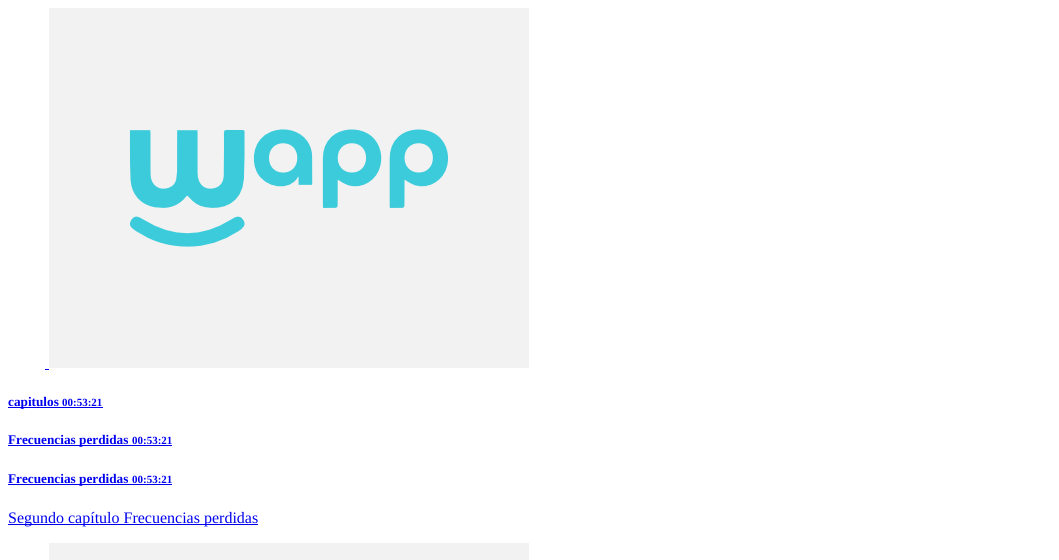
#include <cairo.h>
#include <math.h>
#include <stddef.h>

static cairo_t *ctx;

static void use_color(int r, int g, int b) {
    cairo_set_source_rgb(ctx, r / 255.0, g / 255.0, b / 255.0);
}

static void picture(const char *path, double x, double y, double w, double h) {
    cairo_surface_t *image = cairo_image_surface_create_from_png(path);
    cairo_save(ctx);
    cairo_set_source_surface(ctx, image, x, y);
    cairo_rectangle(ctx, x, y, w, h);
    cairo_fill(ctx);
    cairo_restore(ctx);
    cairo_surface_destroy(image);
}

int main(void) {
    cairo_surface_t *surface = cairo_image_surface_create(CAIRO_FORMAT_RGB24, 1059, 560);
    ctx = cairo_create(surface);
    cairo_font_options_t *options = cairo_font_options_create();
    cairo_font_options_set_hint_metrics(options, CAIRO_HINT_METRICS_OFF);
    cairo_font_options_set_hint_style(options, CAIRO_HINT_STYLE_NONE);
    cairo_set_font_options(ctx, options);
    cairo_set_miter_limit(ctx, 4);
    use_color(255, 255, 255);
    cairo_paint(ctx);
    picture("img1.png", 49, 8, 480, 360);
    use_color(0, 0, 238);
    cairo_rectangle(ctx, 45, 369, 4, 1);
    cairo_fill(ctx);
    cairo_rectangle(ctx, 8, 407, 95, 1);
    cairo_fill(ctx);
    cairo_select_font_face(ctx, "Liberation Serif", CAIRO_FONT_SLANT_NORMAL, CAIRO_FONT_WEIGHT_BOLD);
    cairo_set_font_size(ctx, 13.25);
    cairo_move_to(ctx, 8, 406);
    cairo_show_text(ctx, "capitulos");
    cairo_set_font_size(ctx, 11);
    cairo_move_to(ctx, 62, 406);
    cairo_show_text(ctx, "00:53:21");
    cairo_rectangle(ctx, 8, 445, 164, 1);
    cairo_fill(ctx);
    cairo_set_font_size(ctx, 13.25);
    cairo_move_to(ctx, 8, 444);
    cairo_show_text(ctx, "Frecuencias perdidas");
    cairo_set_font_size(ctx, 11);
    cairo_move_to(ctx, 132, 444);
    cairo_show_text(ctx, "00:53:21");
    cairo_rectangle(ctx, 8, 484, 164, 1);
    cairo_fill(ctx);
    cairo_set_font_size(ctx, 13.25);
    cairo_move_to(ctx, 8, 483);
    cairo_show_text(ctx, "Frecuencias perdidas");
    cairo_set_font_size(ctx, 11);
    cairo_move_to(ctx, 132, 483);
    cairo_show_text(ctx, "00:53:21");
    cairo_rectangle(ctx, 8, 524, 250, 1);
    cairo_fill(ctx);
    cairo_select_font_face(ctx, "Liberation Serif", CAIRO_FONT_SLANT_NORMAL, CAIRO_FONT_WEIGHT_NORMAL);
    cairo_set_font_size(ctx, 16);
    cairo_move_to(ctx, 8, 523);
    cairo_show_text(ctx, "Segundo capítulo Frecuencias perdidas");
    use_color(242, 242, 242);
    cairo_rectangle(ctx, 49, 543, 480, 17);
    cairo_fill(ctx);
    cairo_surface_write_to_png(surface, "result.png");
    cairo_font_options_destroy(options);
    cairo_destroy(ctx);
    cairo_surface_destroy(surface);
    return 0;
}
